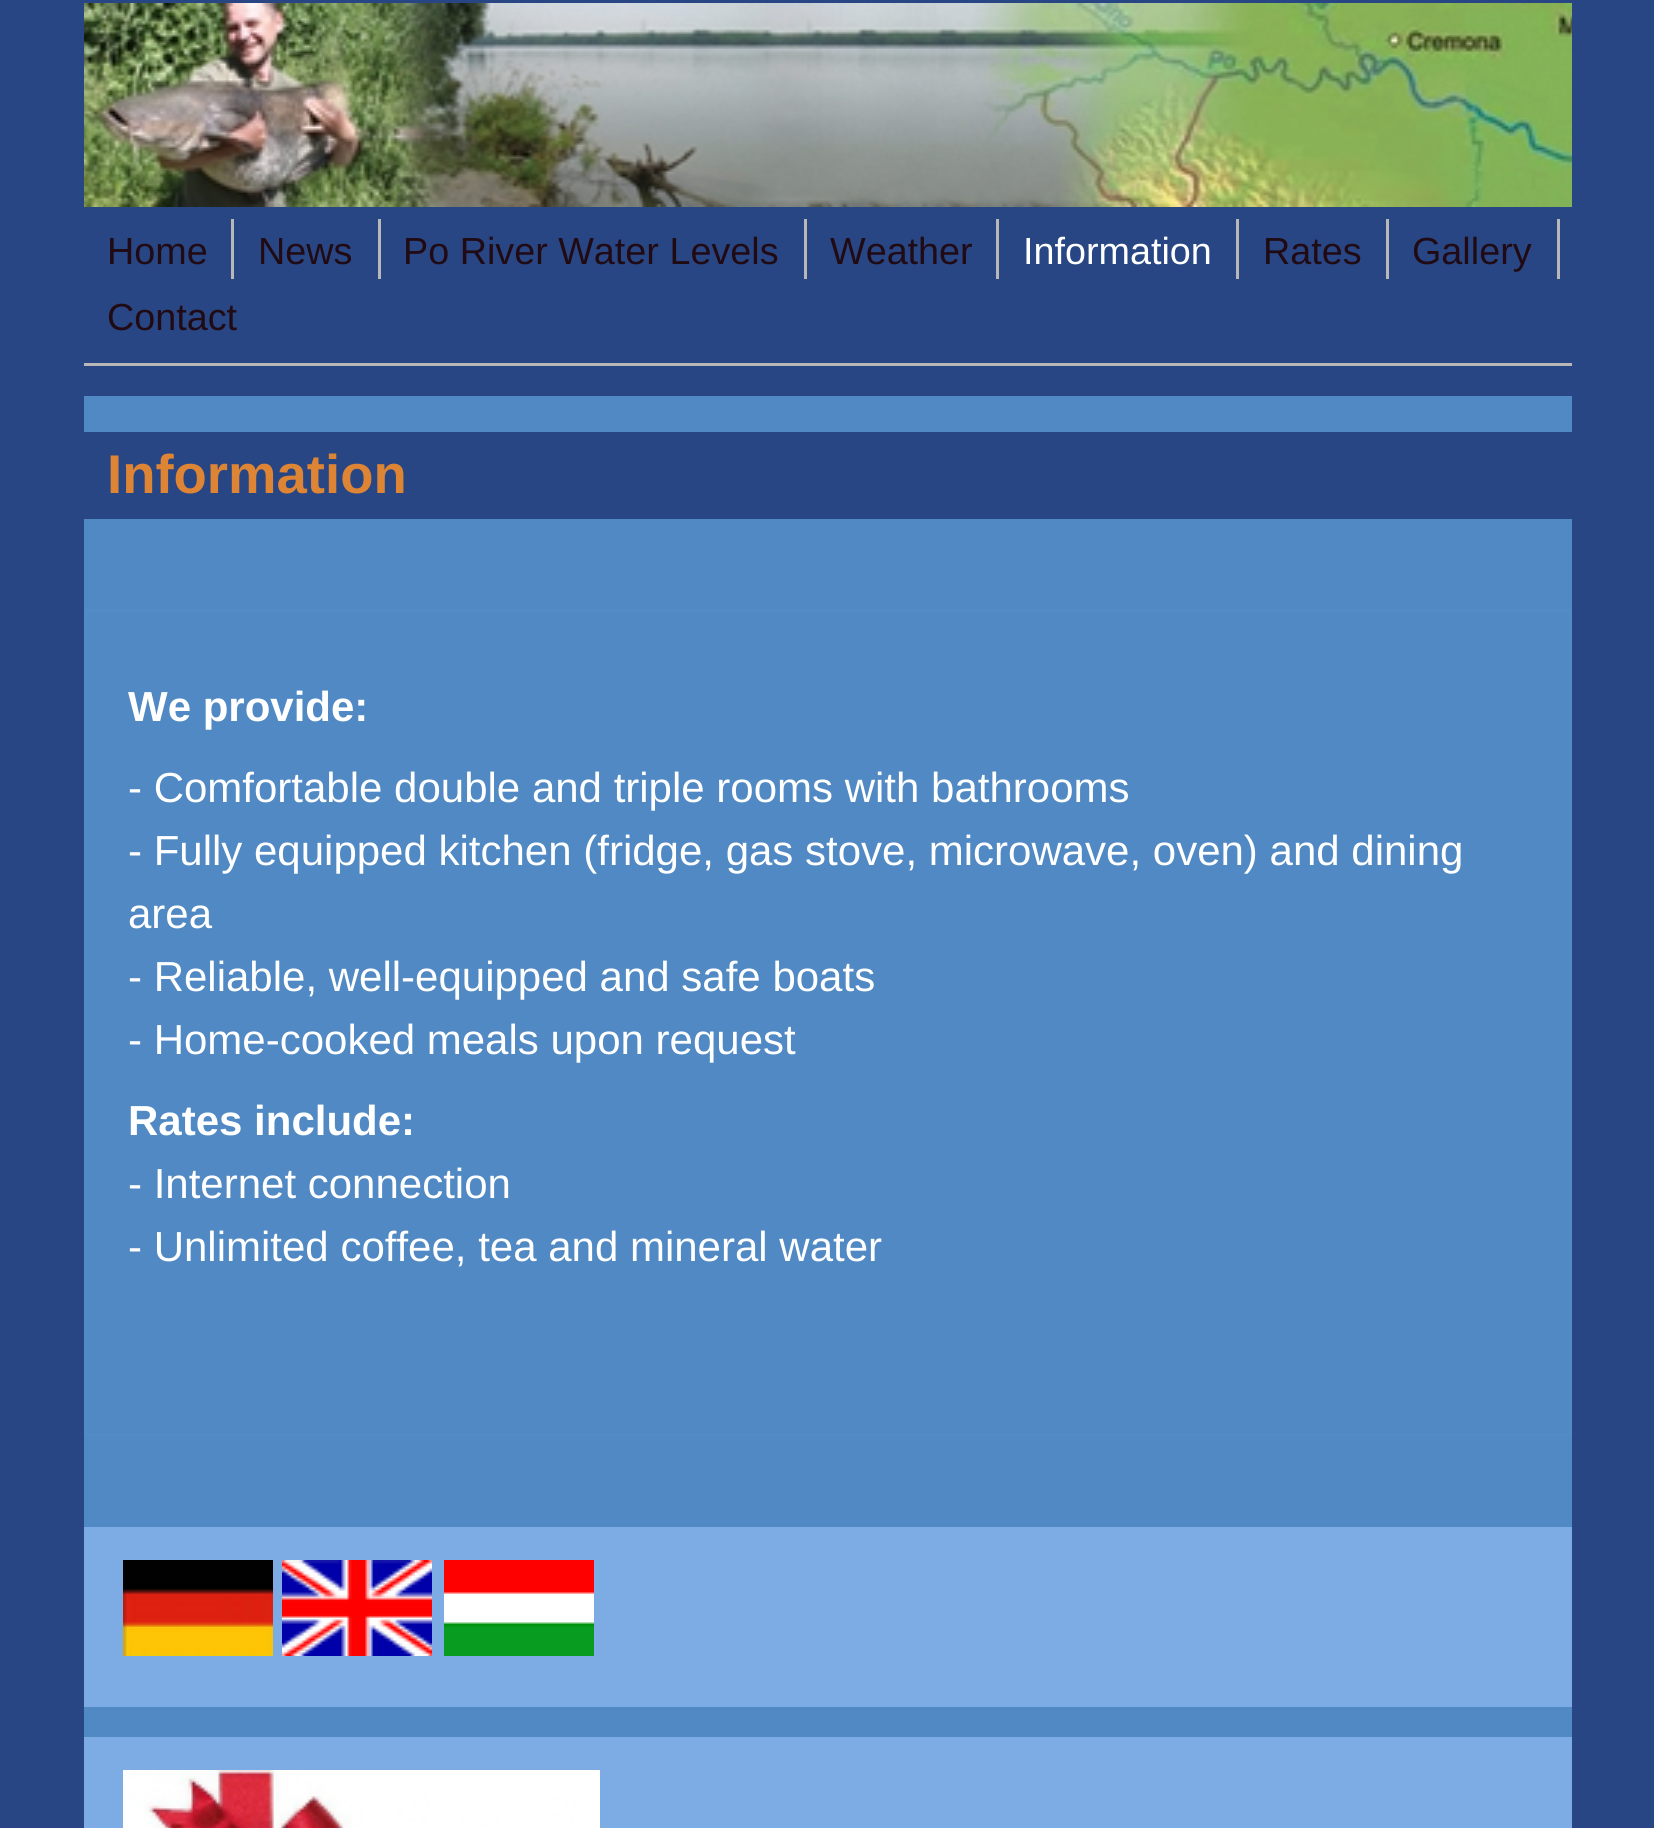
#include <cairo.h>
#include <math.h>
#include <stddef.h>

static cairo_t *ctx;

static void use_color(int r, int g, int b) {
    cairo_set_source_rgb(ctx, r / 255.0, g / 255.0, b / 255.0);
}

static void picture(const char *path, double x, double y, double w, double h) {
    cairo_surface_t *image = cairo_image_surface_create_from_png(path);
    cairo_save(ctx);
    cairo_set_source_surface(ctx, image, x, y);
    cairo_rectangle(ctx, x, y, w, h);
    cairo_fill(ctx);
    cairo_restore(ctx);
    cairo_surface_destroy(image);
}

int main(void) {
    cairo_surface_t *surface = cairo_image_surface_create(CAIRO_FORMAT_RGB24, 1654, 1828);
    ctx = cairo_create(surface);
    cairo_font_options_t *options = cairo_font_options_create();
    cairo_font_options_set_hint_metrics(options, CAIRO_HINT_METRICS_OFF);
    cairo_font_options_set_hint_style(options, CAIRO_HINT_STYLE_NONE);
    cairo_set_font_options(ctx, options);
    cairo_set_miter_limit(ctx, 4);
    use_color(40, 70, 132);
    cairo_paint(ctx);
    picture("img1.png", 84, 3, 1488, 204);
    use_color(184, 184, 184);
    cairo_rectangle(ctx, 84, 363, 1488, 3);
    cairo_fill(ctx);
    cairo_select_font_face(ctx, "Liberation Sans", CAIRO_FONT_SLANT_NORMAL, CAIRO_FONT_WEIGHT_NORMAL);
    cairo_set_font_size(ctx, 37.75);
    use_color(32, 10, 20);
    cairo_move_to(ctx, 107, 264);
    cairo_show_text(ctx, "Home");
    use_color(184, 184, 184);
    cairo_rectangle(ctx, 231, 219, 3, 60);
    cairo_fill(ctx);
    use_color(32, 10, 20);
    cairo_move_to(ctx, 258, 264);
    cairo_show_text(ctx, "News");
    use_color(184, 184, 184);
    cairo_rectangle(ctx, 378, 219, 3, 60);
    cairo_fill(ctx);
    use_color(32, 10, 20);
    cairo_move_to(ctx, 403, 264);
    cairo_show_text(ctx, "Po River Water Levels");
    use_color(184, 184, 184);
    cairo_rectangle(ctx, 804, 219, 3, 60);
    cairo_fill(ctx);
    use_color(32, 10, 20);
    cairo_move_to(ctx, 830, 264);
    cairo_show_text(ctx, "Weather");
    use_color(184, 184, 184);
    cairo_rectangle(ctx, 996, 219, 3, 60);
    cairo_fill(ctx);
    use_color(255, 255, 255);
    cairo_move_to(ctx, 1023, 264);
    cairo_show_text(ctx, "Information");
    use_color(184, 184, 184);
    cairo_rectangle(ctx, 1236, 219, 3, 60);
    cairo_fill(ctx);
    use_color(32, 10, 20);
    cairo_move_to(ctx, 1263, 264);
    cairo_show_text(ctx, "Rates");
    use_color(184, 184, 184);
    cairo_rectangle(ctx, 1386, 219, 3, 60);
    cairo_fill(ctx);
    use_color(32, 10, 20);
    cairo_move_to(ctx, 1412, 264);
    cairo_show_text(ctx, "Gallery");
    use_color(184, 184, 184);
    cairo_rectangle(ctx, 1557, 219, 3, 60);
    cairo_fill(ctx);
    use_color(32, 10, 20);
    cairo_move_to(ctx, 107, 330);
    cairo_show_text(ctx, "Contact");
    use_color(80, 137, 195);
    cairo_rectangle(ctx, 84, 396, 1488, 1341);
    cairo_fill(ctx);
    use_color(40, 70, 132);
    cairo_rectangle(ctx, 84, 432, 1488, 87);
    cairo_fill(ctx);
    cairo_select_font_face(ctx, "Liberation Sans", CAIRO_FONT_SLANT_NORMAL, CAIRO_FONT_WEIGHT_BOLD);
    cairo_set_font_size(ctx, 54.5);
    use_color(221, 132, 53);
    cairo_move_to(ctx, 107, 493);
    cairo_show_text(ctx, "Information");
    cairo_rectangle(ctx, 85.5, 610.5, 1485, 825);
    use_color(83, 140, 196);
    cairo_set_line_width(ctx, 3);
    cairo_stroke(ctx);
    cairo_set_font_size(ctx, 42);
    use_color(255, 255, 255);
    cairo_move_to(ctx, 128, 721);
    cairo_show_text(ctx, "We provide:");
    cairo_select_font_face(ctx, "Liberation Sans", CAIRO_FONT_SLANT_NORMAL, CAIRO_FONT_WEIGHT_NORMAL);
    cairo_move_to(ctx, 128, 802);
    cairo_show_text(ctx, "- Comfortable double and triple rooms with bathrooms");
    cairo_move_to(ctx, 128, 865);
    cairo_show_text(ctx, "- Fully equipped kitchen (fridge, gas stove, microwave, oven) and dining");
    cairo_move_to(ctx, 128, 928);
    cairo_show_text(ctx, "area");
    cairo_move_to(ctx, 128, 991);
    cairo_show_text(ctx, "- Reliable, well-equipped and safe boats");
    cairo_move_to(ctx, 128, 1054);
    cairo_show_text(ctx, "- Home-cooked meals upon request");
    cairo_select_font_face(ctx, "Liberation Sans", CAIRO_FONT_SLANT_NORMAL, CAIRO_FONT_WEIGHT_BOLD);
    cairo_move_to(ctx, 128, 1135);
    cairo_show_text(ctx, "Rates include:");
    cairo_select_font_face(ctx, "Liberation Sans", CAIRO_FONT_SLANT_NORMAL, CAIRO_FONT_WEIGHT_NORMAL);
    cairo_move_to(ctx, 128, 1198);
    cairo_show_text(ctx, "- Internet connection");
    cairo_move_to(ctx, 128, 1261);
    cairo_show_text(ctx, "- Unlimited coffee, tea and mineral water");
    use_color(124, 172, 227);
    cairo_rectangle(ctx, 84, 1527, 1488, 180);
    cairo_fill(ctx);
    picture("img2.png", 123, 1560, 150, 96);
    picture("img3.png", 282, 1560, 150, 96);
    picture("img4.png", 444, 1560, 150, 96);
    cairo_rectangle(ctx, 84, 1737, 1488, 91);
    cairo_fill(ctx);
    picture("img5.png", 123, 1770, 477, 58);
    cairo_surface_write_to_png(surface, "result.png");
    cairo_font_options_destroy(options);
    cairo_destroy(ctx);
    cairo_surface_destroy(surface);
    return 0;
}
